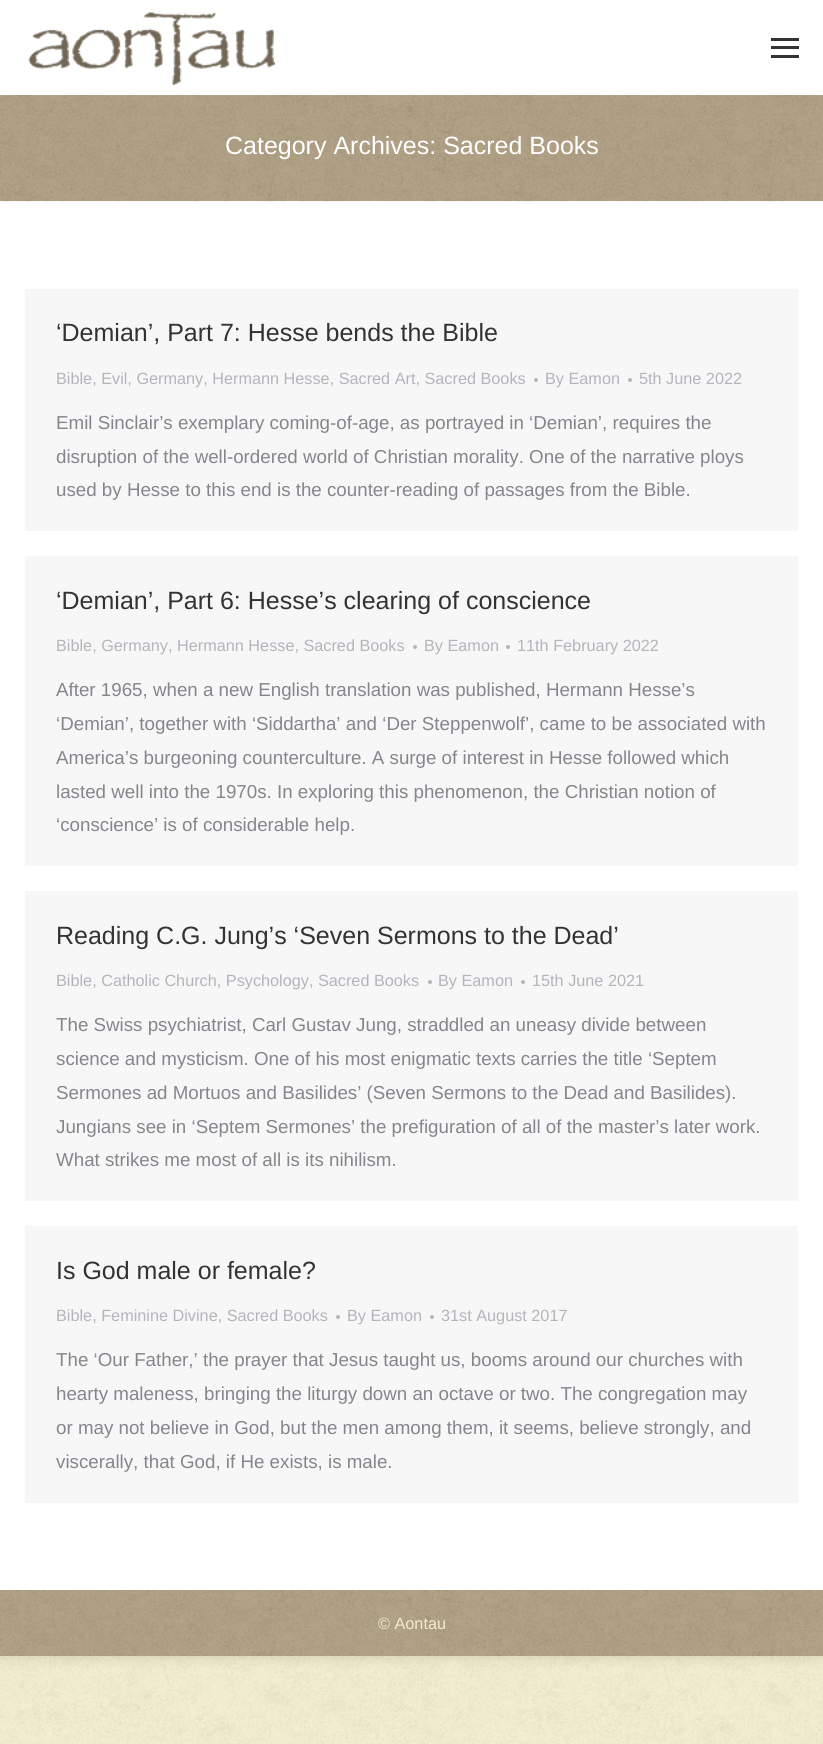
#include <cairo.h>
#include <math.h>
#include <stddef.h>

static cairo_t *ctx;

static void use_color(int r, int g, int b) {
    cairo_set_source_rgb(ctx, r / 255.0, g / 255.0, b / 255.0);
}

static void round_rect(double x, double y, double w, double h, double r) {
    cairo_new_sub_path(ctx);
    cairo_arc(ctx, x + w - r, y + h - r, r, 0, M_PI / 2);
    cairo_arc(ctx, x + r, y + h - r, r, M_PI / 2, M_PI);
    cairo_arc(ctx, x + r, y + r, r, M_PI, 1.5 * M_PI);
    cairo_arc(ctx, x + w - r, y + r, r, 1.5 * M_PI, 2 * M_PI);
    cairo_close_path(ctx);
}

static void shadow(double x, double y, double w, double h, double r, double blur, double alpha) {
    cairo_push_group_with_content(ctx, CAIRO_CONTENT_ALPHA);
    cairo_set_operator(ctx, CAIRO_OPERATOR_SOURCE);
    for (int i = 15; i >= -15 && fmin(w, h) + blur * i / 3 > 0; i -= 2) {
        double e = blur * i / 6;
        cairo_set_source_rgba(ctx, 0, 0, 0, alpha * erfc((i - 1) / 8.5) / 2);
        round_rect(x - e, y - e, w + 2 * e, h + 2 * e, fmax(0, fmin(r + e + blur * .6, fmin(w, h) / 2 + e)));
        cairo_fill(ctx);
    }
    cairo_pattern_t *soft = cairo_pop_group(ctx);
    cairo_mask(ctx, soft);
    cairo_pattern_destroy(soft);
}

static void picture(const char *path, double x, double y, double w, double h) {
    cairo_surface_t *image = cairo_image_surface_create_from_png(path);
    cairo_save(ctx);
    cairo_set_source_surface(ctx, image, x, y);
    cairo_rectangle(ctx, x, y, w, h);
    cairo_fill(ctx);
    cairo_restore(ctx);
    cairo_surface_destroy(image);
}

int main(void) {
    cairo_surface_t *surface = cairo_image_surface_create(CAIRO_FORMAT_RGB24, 823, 1744);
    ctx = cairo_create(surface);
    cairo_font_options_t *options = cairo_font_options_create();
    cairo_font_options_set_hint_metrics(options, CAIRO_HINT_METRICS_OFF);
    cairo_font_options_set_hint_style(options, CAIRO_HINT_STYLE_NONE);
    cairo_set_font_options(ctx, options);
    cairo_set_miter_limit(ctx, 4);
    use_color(242, 236, 204);
    cairo_paint(ctx);
    picture("img1.png", 0, 1656, 823, 88);
    use_color(0, 0, 0);
    shadow(0, 0, 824, 1656, 0, 7.5, 0.15);
    use_color(255, 255, 255);
    cairo_rectangle(ctx, 0, 0, 823, 1590);
    cairo_fill(ctx);
    picture("img2.png", 28, 12, 248, 73);
    use_color(51, 51, 51);
    cairo_rectangle(ctx, 771, 46, 28, 3);
    cairo_fill(ctx);
    cairo_rectangle(ctx, 771, 38, 28, 3);
    cairo_fill(ctx);
    cairo_rectangle(ctx, 771, 55, 28, 3);
    cairo_fill(ctx);
    use_color(169, 151, 121);
    cairo_rectangle(ctx, 0, 95, 823, 106);
    cairo_fill(ctx);
    picture("img3.png", 0, 95, 823, 107);
    cairo_select_font_face(ctx, "Liberation Sans", CAIRO_FONT_SLANT_NORMAL, CAIRO_FONT_WEIGHT_NORMAL);
    cairo_set_font_size(ctx, 25);
    use_color(255, 255, 255);
    cairo_move_to(ctx, 225, 154);
    cairo_show_text(ctx, "Category Archives: Sacred Books");
    use_color(247, 247, 247);
    cairo_rectangle(ctx, 25, 289, 773, 242);
    cairo_fill(ctx);
    use_color(51, 51, 51);
    cairo_move_to(ctx, 56, 341);
    cairo_show_text(ctx, "‘Demian’, Part 7: Hesse bends the Bible");
    cairo_set_font_size(ctx, 16.25);
    use_color(180, 181, 187);
    cairo_move_to(ctx, 56, 384);
    cairo_show_text(ctx, "Bible, Evil, Germany, Hermann Hesse, Sacred Art, Sacred Books");
    cairo_new_path(ctx);
    cairo_arc(ctx, 536, 380, 2, 0, 2 * M_PI);
    cairo_fill(ctx);
    cairo_move_to(ctx, 545, 384);
    cairo_show_text(ctx, "By Eamon");
    cairo_new_path(ctx);
    cairo_arc(ctx, 630, 380, 2, 0, 2 * M_PI);
    cairo_fill(ctx);
    cairo_move_to(ctx, 639, 384);
    cairo_show_text(ctx, "5th June 2022");
    cairo_set_font_size(ctx, 18.75);
    use_color(133, 134, 140);
    cairo_move_to(ctx, 56, 429);
    cairo_show_text(ctx, "Emil Sinclair’s exemplary coming-of-age, as portrayed in ‘Demian’, requires the");
    cairo_move_to(ctx, 56, 463);
    cairo_show_text(ctx, "disruption of the well-ordered world of Christian morality. One of the narrative ploys");
    cairo_move_to(ctx, 56, 496);
    cairo_show_text(ctx, "used by Hesse to this end is the counter-reading of passages from the Bible.");
    use_color(247, 247, 247);
    cairo_rectangle(ctx, 25, 556, 773, 310);
    cairo_fill(ctx);
    cairo_set_font_size(ctx, 25);
    use_color(51, 51, 51);
    cairo_move_to(ctx, 56, 609);
    cairo_show_text(ctx, "‘Demian’, Part 6: Hesse’s clearing of conscience");
    cairo_set_font_size(ctx, 16.25);
    use_color(180, 181, 187);
    cairo_move_to(ctx, 56, 651);
    cairo_show_text(ctx, "Bible, Germany, Hermann Hesse, Sacred Books");
    cairo_new_path(ctx);
    cairo_arc(ctx, 415, 647, 2, 0, 2 * M_PI);
    cairo_fill(ctx);
    cairo_move_to(ctx, 424, 651);
    cairo_show_text(ctx, "By Eamon");
    cairo_new_path(ctx);
    cairo_arc(ctx, 508, 647, 2, 0, 2 * M_PI);
    cairo_fill(ctx);
    cairo_move_to(ctx, 517, 651);
    cairo_show_text(ctx, "11th February 2022");
    cairo_set_font_size(ctx, 18.75);
    use_color(133, 134, 140);
    cairo_move_to(ctx, 56, 696);
    cairo_show_text(ctx, "After 1965, when a new English translation was published, Hermann Hesse’s");
    cairo_move_to(ctx, 56, 730);
    cairo_show_text(ctx, "‘Demian’, together with ‘Siddartha’ and ‘Der Steppenwolf’, came to be associated with");
    cairo_move_to(ctx, 56, 764);
    cairo_show_text(ctx, "America’s burgeoning counterculture. A surge of interest in Hesse followed which");
    cairo_move_to(ctx, 56, 798);
    cairo_show_text(ctx, "lasted well into the 1970s. In exploring this phenomenon, the Christian notion of");
    cairo_move_to(ctx, 56, 831);
    cairo_show_text(ctx, "‘conscience’ is of considerable help.");
    use_color(247, 247, 247);
    cairo_rectangle(ctx, 25, 891, 773, 310);
    cairo_fill(ctx);
    cairo_set_font_size(ctx, 25);
    use_color(51, 51, 51);
    cairo_move_to(ctx, 56, 944);
    cairo_show_text(ctx, "Reading C.G. Jung’s ‘Seven Sermons to the Dead’");
    cairo_set_font_size(ctx, 16.25);
    use_color(180, 181, 187);
    cairo_move_to(ctx, 56, 986);
    cairo_show_text(ctx, "Bible, Catholic Church, Psychology, Sacred Books");
    cairo_new_path(ctx);
    cairo_arc(ctx, 430, 982, 2, 0, 2 * M_PI);
    cairo_fill(ctx);
    cairo_move_to(ctx, 438, 986);
    cairo_show_text(ctx, "By Eamon");
    cairo_new_path(ctx);
    cairo_arc(ctx, 523, 982, 2, 0, 2 * M_PI);
    cairo_fill(ctx);
    cairo_move_to(ctx, 532, 986);
    cairo_show_text(ctx, "15th June 2021");
    cairo_set_font_size(ctx, 18.75);
    use_color(133, 134, 140);
    cairo_move_to(ctx, 56, 1031);
    cairo_show_text(ctx, "The Swiss psychiatrist, Carl Gustav Jung, straddled an uneasy divide between");
    cairo_move_to(ctx, 56, 1065);
    cairo_show_text(ctx, "science and mysticism. One of his most enigmatic texts carries the title ‘Septem");
    cairo_move_to(ctx, 56, 1099);
    cairo_show_text(ctx, "Sermones ad Mortuos and Basilides’ (Seven Sermons to the Dead and Basilides).");
    cairo_move_to(ctx, 56, 1133);
    cairo_show_text(ctx, "Jungians see in ‘Septem Sermones’ the prefiguration of all of the master’s later work.");
    cairo_move_to(ctx, 56, 1166);
    cairo_show_text(ctx, "What strikes me most of all is its nihilism.");
    use_color(247, 247, 247);
    cairo_rectangle(ctx, 25, 1226, 773, 277);
    cairo_fill(ctx);
    cairo_set_font_size(ctx, 25);
    use_color(51, 51, 51);
    cairo_move_to(ctx, 56, 1279);
    cairo_show_text(ctx, "Is God male or female?");
    cairo_set_font_size(ctx, 16.25);
    use_color(180, 181, 187);
    cairo_move_to(ctx, 56, 1321);
    cairo_show_text(ctx, "Bible, Feminine Divine, Sacred Books");
    cairo_new_path(ctx);
    cairo_arc(ctx, 338, 1317, 2, 0, 2 * M_PI);
    cairo_fill(ctx);
    cairo_move_to(ctx, 347, 1321);
    cairo_show_text(ctx, "By Eamon");
    cairo_new_path(ctx);
    cairo_arc(ctx, 432, 1317, 2, 0, 2 * M_PI);
    cairo_fill(ctx);
    cairo_move_to(ctx, 441, 1321);
    cairo_show_text(ctx, "31st August 2017");
    cairo_set_font_size(ctx, 18.75);
    use_color(133, 134, 140);
    cairo_move_to(ctx, 56, 1366);
    cairo_show_text(ctx, "The ‘Our Father,’ the prayer that Jesus taught us, booms around our churches with");
    cairo_move_to(ctx, 56, 1400);
    cairo_show_text(ctx, "hearty maleness, bringing the liturgy down an octave or two. The congregation may");
    cairo_move_to(ctx, 56, 1434);
    cairo_show_text(ctx, "or may not believe in God, but the men among them, it seems, believe strongly, and");
    cairo_move_to(ctx, 56, 1468);
    cairo_show_text(ctx, "viscerally, that God, if He exists, is male.");
    use_color(169, 151, 121);
    cairo_rectangle(ctx, 0, 1590, 823, 66);
    cairo_fill(ctx);
    picture("img4.png", 0, 1590, 823, 66);
    cairo_set_font_size(ctx, 16.25);
    use_color(242, 236, 204);
    cairo_move_to(ctx, 378, 1629);
    cairo_show_text(ctx, "© Aontau");
    cairo_surface_write_to_png(surface, "result.png");
    cairo_font_options_destroy(options);
    cairo_destroy(ctx);
    cairo_surface_destroy(surface);
    return 0;
}
